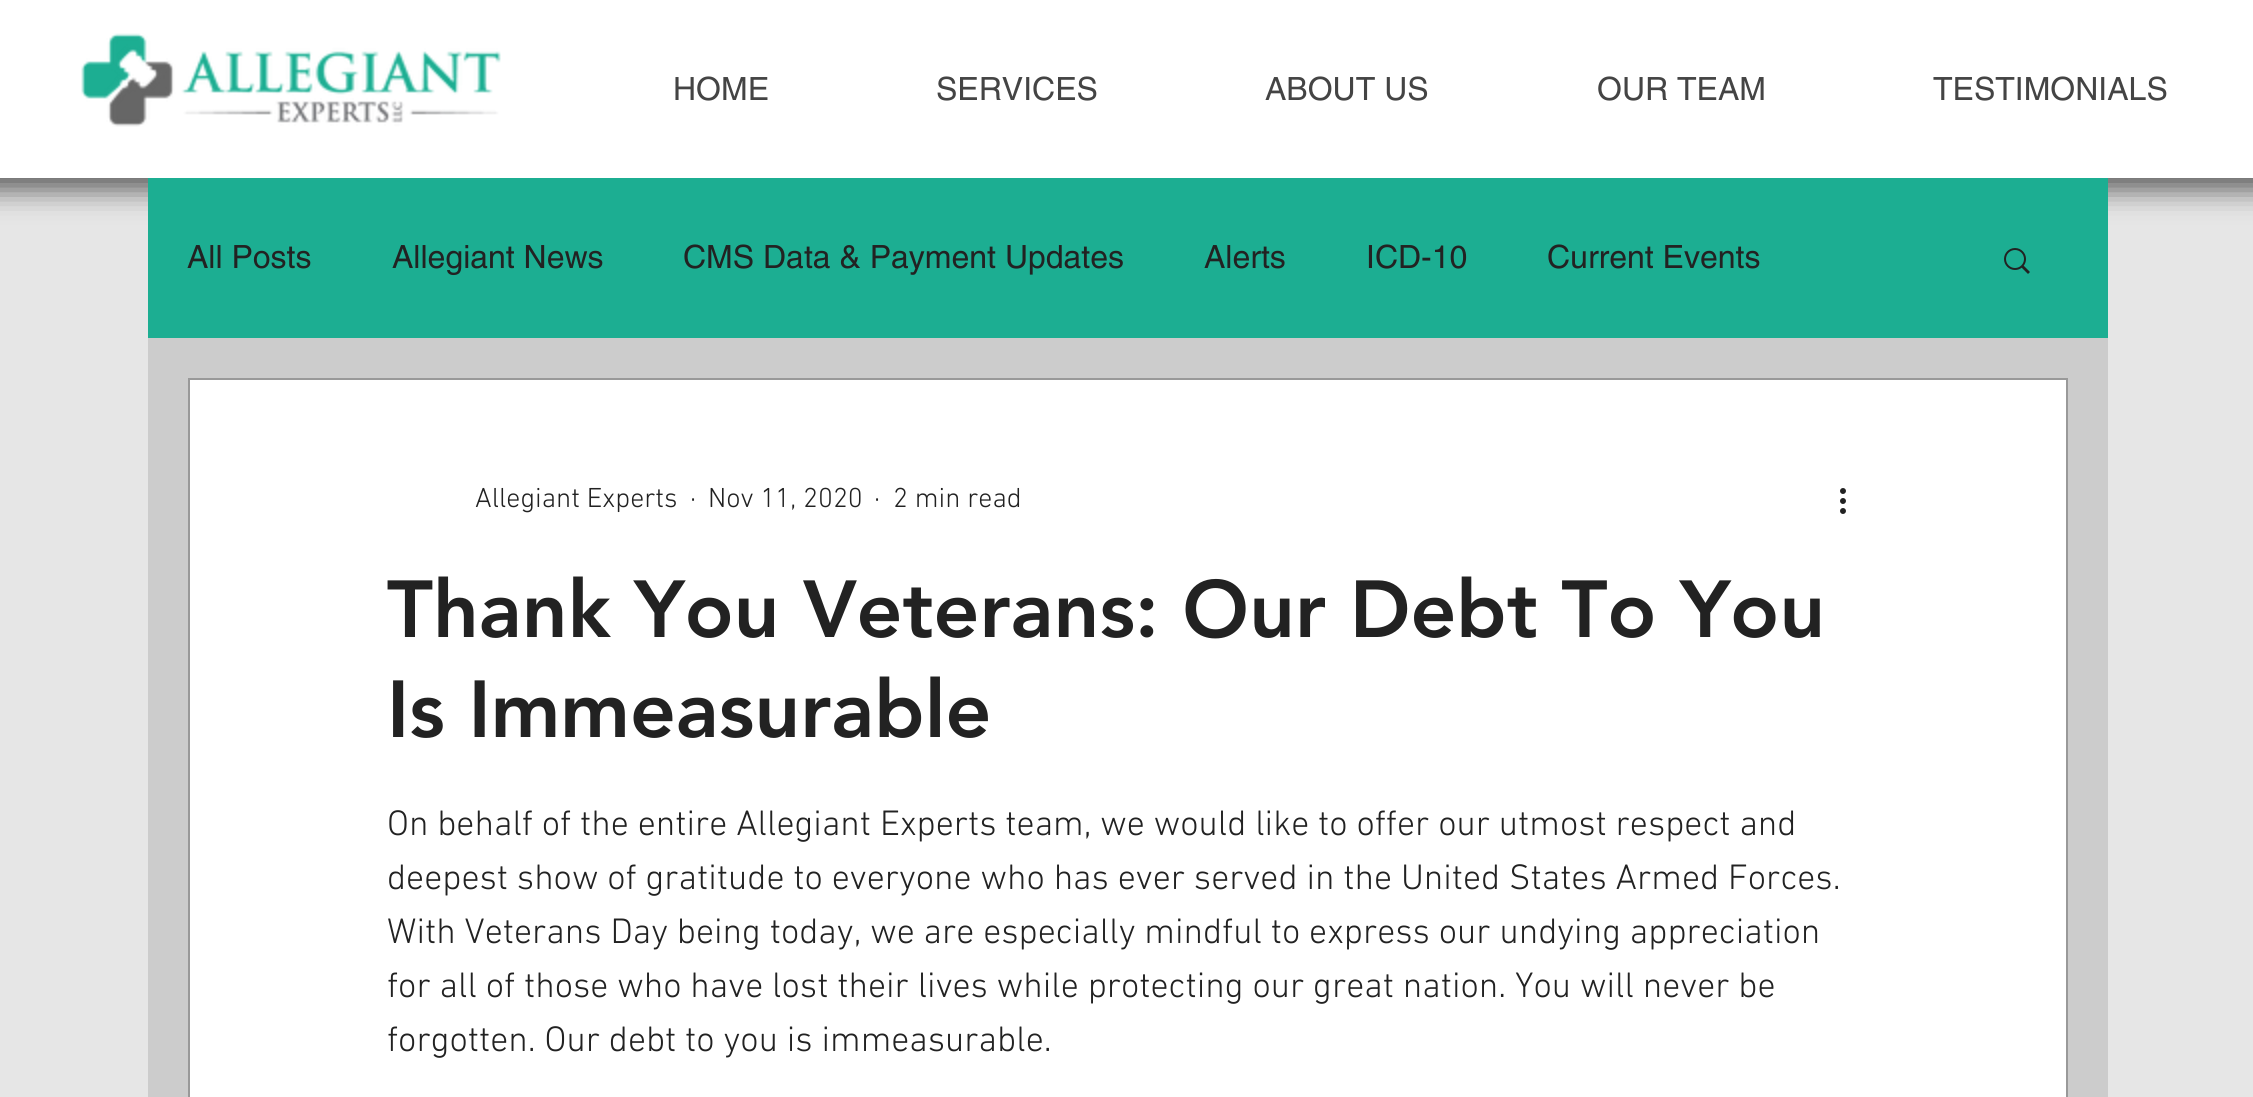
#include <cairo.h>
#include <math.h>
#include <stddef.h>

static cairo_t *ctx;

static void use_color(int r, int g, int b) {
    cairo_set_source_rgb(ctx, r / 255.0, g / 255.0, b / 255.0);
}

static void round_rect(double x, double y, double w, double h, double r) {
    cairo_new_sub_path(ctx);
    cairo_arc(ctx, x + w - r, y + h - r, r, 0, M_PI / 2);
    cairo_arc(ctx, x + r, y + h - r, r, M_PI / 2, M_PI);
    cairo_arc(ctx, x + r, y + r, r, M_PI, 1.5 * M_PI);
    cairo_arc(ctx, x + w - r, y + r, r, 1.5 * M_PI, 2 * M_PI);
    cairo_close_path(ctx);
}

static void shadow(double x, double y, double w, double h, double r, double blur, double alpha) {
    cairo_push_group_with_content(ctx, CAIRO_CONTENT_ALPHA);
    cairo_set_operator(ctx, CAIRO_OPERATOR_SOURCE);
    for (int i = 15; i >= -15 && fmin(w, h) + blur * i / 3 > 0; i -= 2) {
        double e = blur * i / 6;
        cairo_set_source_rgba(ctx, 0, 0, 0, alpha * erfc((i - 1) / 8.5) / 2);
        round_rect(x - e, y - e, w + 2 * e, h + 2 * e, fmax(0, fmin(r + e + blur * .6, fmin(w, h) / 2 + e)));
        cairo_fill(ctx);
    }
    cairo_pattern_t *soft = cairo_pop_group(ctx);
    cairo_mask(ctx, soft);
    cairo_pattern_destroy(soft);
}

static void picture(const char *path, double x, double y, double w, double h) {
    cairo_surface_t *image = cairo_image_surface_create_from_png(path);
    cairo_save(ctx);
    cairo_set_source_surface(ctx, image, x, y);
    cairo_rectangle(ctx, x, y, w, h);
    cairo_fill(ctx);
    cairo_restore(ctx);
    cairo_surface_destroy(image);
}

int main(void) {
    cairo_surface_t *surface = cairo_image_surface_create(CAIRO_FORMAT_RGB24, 2253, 1097);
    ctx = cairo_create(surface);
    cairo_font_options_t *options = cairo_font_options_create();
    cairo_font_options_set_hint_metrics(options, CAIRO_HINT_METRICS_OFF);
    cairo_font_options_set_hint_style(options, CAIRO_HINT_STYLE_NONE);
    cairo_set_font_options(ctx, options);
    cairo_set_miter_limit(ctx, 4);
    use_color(230, 230, 230);
    cairo_paint(ctx);
    use_color(0, 0, 0);
    shadow(-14, -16, 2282, 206, 0, 14, 0.6);
    use_color(255, 255, 255);
    cairo_rectangle(ctx, 0, 0, 2253, 178);
    cairo_fill(ctx);
    picture("img1.png", 81, 33, 420, 94);
    cairo_select_font_face(ctx, "helvetica", CAIRO_FONT_SLANT_NORMAL, CAIRO_FONT_WEIGHT_NORMAL);
    cairo_set_font_size(ctx, 32);
    use_color(68, 68, 68);
    cairo_move_to(ctx, 673, 100);
    cairo_show_text(ctx, "HOME");
    cairo_move_to(ctx, 936, 100);
    cairo_show_text(ctx, "SERVICES");
    cairo_move_to(ctx, 1265, 100);
    cairo_show_text(ctx, "ABOUT US");
    cairo_move_to(ctx, 1597, 100);
    cairo_show_text(ctx, "OUR TEAM");
    cairo_move_to(ctx, 1933, 100);
    cairo_show_text(ctx, "TESTIMONIALS");
    use_color(204, 204, 204);
    cairo_rectangle(ctx, 148, 338, 1960, 759);
    cairo_fill(ctx);
    use_color(28, 174, 146);
    cairo_rectangle(ctx, 148, 178, 1960, 160);
    cairo_fill(ctx);
    use_color(34, 34, 34);
    cairo_move_to(ctx, 187, 268);
    cairo_show_text(ctx, "All Posts");
    cairo_move_to(ctx, 392, 268);
    cairo_show_text(ctx, "Allegiant News");
    cairo_move_to(ctx, 683, 268);
    cairo_show_text(ctx, "CMS Data & Payment Updates");
    cairo_move_to(ctx, 1204, 268);
    cairo_show_text(ctx, "Alerts");
    cairo_move_to(ctx, 1366, 268);
    cairo_show_text(ctx, "ICD-10");
    cairo_move_to(ctx, 1547, 268);
    cairo_show_text(ctx, "Current Events");
    picture("img2.png", 2004, 248, 26, 26);
    use_color(255, 255, 255);
    cairo_rectangle(ctx, 189, 379, 1878, 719);
    cairo_fill_preserve(ctx);
    use_color(153, 153, 153);
    cairo_stroke(ctx);
    cairo_select_font_face(ctx, "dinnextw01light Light", CAIRO_FONT_SLANT_NORMAL, CAIRO_FONT_WEIGHT_NORMAL);
    cairo_set_font_size(ctx, 28);
    use_color(34, 34, 34);
    cairo_move_to(ctx, 475, 507);
    cairo_show_text(ctx, "Allegiant Experts");
    cairo_move_to(ctx, 690, 507);
    cairo_show_text(ctx, "·");
    cairo_move_to(ctx, 708, 507);
    cairo_show_text(ctx, "Nov 11, 2020");
    cairo_move_to(ctx, 874, 507);
    cairo_show_text(ctx, "·");
    cairo_move_to(ctx, 893, 507);
    cairo_show_text(ctx, "2 min read");
    picture("img3.png", 1840, 488, 6, 26);
    cairo_select_font_face(ctx, "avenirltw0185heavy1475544 Black", CAIRO_FONT_SLANT_NORMAL, CAIRO_FONT_WEIGHT_NORMAL);
    cairo_set_font_size(ctx, 80);
    cairo_move_to(ctx, 387, 637);
    cairo_show_text(ctx, "Thank You Veterans: Our Debt To You");
    cairo_move_to(ctx, 387, 737);
    cairo_show_text(ctx, "Is Immeasurable");
    cairo_select_font_face(ctx, "dinnextw01light Light", CAIRO_FONT_SLANT_NORMAL, CAIRO_FONT_WEIGHT_NORMAL);
    cairo_set_font_size(ctx, 36);
    cairo_move_to(ctx, 387, 835);
    cairo_show_text(ctx, "On behalf of the entire Allegiant Experts team, we would like to offer our utmost respect and");
    cairo_move_to(ctx, 387, 889);
    cairo_show_text(ctx, "deepest show of gratitude to everyone who has ever served in the United States Armed Forces.");
    cairo_move_to(ctx, 387, 943);
    cairo_show_text(ctx, "With Veterans Day being today, we are especially mindful to express our undying appreciation");
    cairo_move_to(ctx, 387, 997);
    cairo_show_text(ctx, "for all of those who have lost their lives while protecting our great nation. You will never be");
    cairo_move_to(ctx, 387, 1051);
    cairo_show_text(ctx, "forgotten. Our debt to you is immeasurable.");
    cairo_surface_write_to_png(surface, "result.png");
    cairo_font_options_destroy(options);
    cairo_destroy(ctx);
    cairo_surface_destroy(surface);
    return 0;
}
